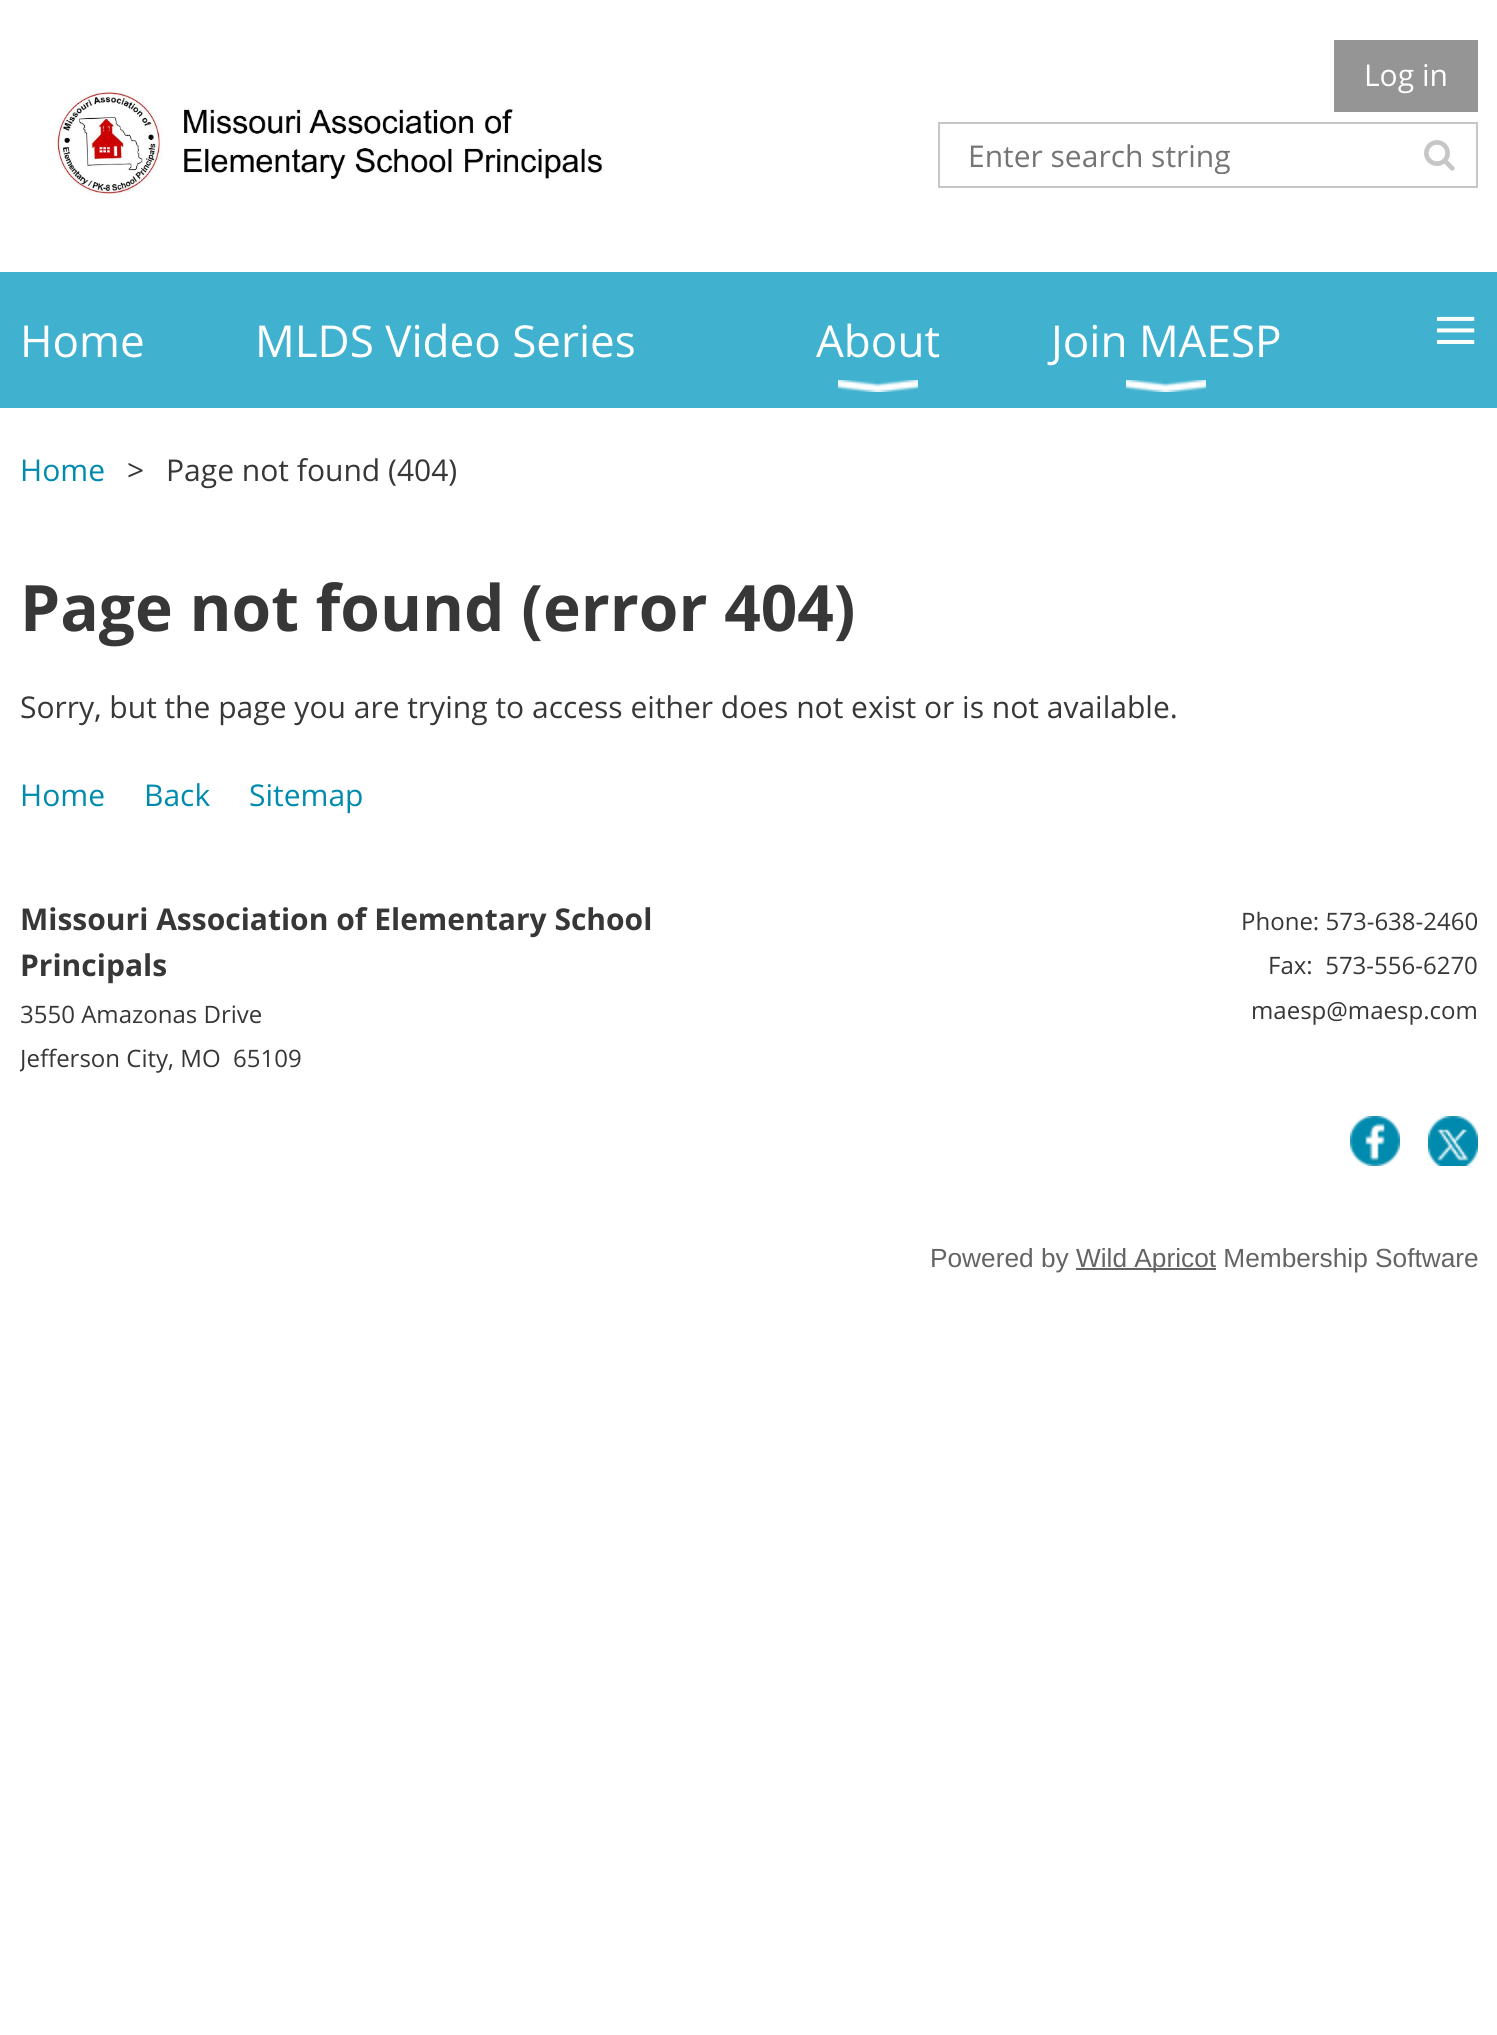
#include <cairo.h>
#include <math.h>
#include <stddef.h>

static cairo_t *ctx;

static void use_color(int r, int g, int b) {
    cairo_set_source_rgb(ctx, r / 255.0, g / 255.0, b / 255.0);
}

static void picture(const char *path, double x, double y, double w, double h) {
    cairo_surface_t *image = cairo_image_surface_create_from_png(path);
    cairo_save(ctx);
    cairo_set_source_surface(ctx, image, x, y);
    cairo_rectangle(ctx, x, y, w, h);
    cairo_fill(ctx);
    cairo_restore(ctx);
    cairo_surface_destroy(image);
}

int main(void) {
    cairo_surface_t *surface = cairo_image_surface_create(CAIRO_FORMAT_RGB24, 1497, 2035);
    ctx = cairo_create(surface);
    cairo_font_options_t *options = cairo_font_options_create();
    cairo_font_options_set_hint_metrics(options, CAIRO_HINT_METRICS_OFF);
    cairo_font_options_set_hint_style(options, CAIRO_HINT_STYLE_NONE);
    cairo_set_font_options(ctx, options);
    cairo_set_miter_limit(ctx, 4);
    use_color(255, 255, 255);
    cairo_paint(ctx);
    picture("img1.png", 55, 91, 548, 104);
    use_color(149, 149, 149);
    cairo_rectangle(ctx, 1334, 40, 144, 72);
    cairo_fill(ctx);
    cairo_select_font_face(ctx, "Open Sans", CAIRO_FONT_SLANT_NORMAL, CAIRO_FONT_WEIGHT_NORMAL);
    cairo_set_font_size(ctx, 30);
    use_color(255, 255, 255);
    cairo_move_to(ctx, 1364, 86);
    cairo_show_text(ctx, "Log in");
    cairo_rectangle(ctx, 939, 123, 538, 64);
    use_color(198, 198, 198);
    cairo_stroke(ctx);
    cairo_save(ctx);
    cairo_rectangle(ctx, 968, 134, 438, 40);
    cairo_clip(ctx);
    use_color(117, 117, 117);
    cairo_move_to(ctx, 968, 167);
    cairo_show_text(ctx, "Enter search string");
    cairo_restore(ctx);
    picture("img2.png", 1424, 140, 31, 31);
    use_color(64, 178, 207);
    cairo_rectangle(ctx, 0, 272, 1497, 136);
    cairo_fill(ctx);
    cairo_set_font_size(ctx, 44);
    use_color(255, 255, 255);
    cairo_move_to(ctx, 20, 357);
    cairo_show_text(ctx, "Home");
    cairo_move_to(ctx, 255, 357);
    cairo_show_text(ctx, "MLDS Video Series");
    cairo_move_to(ctx, 816, 357);
    cairo_show_text(ctx, "About");
    picture("img3.png", 838, 380, 80, 12);
    cairo_move_to(ctx, 1051, 357);
    cairo_show_text(ctx, "Join MAESP");
    picture("img3.png", 1126, 380, 80, 12);
    cairo_select_font_face(ctx, "Liberation Serif", CAIRO_FONT_SLANT_NORMAL, CAIRO_FONT_WEIGHT_NORMAL);
    cairo_set_font_size(ctx, 80);
    cairo_move_to(ctx, 1433, 357);
    cairo_show_text(ctx, "≡");
    cairo_select_font_face(ctx, "Open Sans", CAIRO_FONT_SLANT_NORMAL, CAIRO_FONT_WEIGHT_NORMAL);
    cairo_set_font_size(ctx, 30);
    use_color(0, 139, 174);
    cairo_move_to(ctx, 20, 481);
    cairo_show_text(ctx, "Home");
    use_color(55, 55, 55);
    cairo_move_to(ctx, 127, 481);
    cairo_show_text(ctx, ">");
    cairo_move_to(ctx, 166, 481);
    cairo_show_text(ctx, "Page not found (404)");
    cairo_select_font_face(ctx, "Open Sans", CAIRO_FONT_SLANT_NORMAL, CAIRO_FONT_WEIGHT_BOLD);
    cairo_set_font_size(ctx, 64);
    cairo_move_to(ctx, 20, 631);
    cairo_show_text(ctx, "Page not found (error 404)");
    cairo_select_font_face(ctx, "Open Sans", CAIRO_FONT_SLANT_NORMAL, CAIRO_FONT_WEIGHT_NORMAL);
    cairo_set_font_size(ctx, 30);
    cairo_move_to(ctx, 20, 718);
    cairo_show_text(ctx, "Sorry, but the page you are trying to access either does not exist or is not available.");
    use_color(0, 139, 174);
    cairo_move_to(ctx, 20, 806);
    cairo_show_text(ctx, "Home");
    cairo_move_to(ctx, 144, 806);
    cairo_show_text(ctx, "Back");
    cairo_move_to(ctx, 249, 806);
    cairo_show_text(ctx, "Sitemap");
    cairo_select_font_face(ctx, "Open Sans", CAIRO_FONT_SLANT_NORMAL, CAIRO_FONT_WEIGHT_BOLD);
    use_color(55, 55, 55);
    cairo_move_to(ctx, 20, 930);
    cairo_show_text(ctx, "Missouri Association of Elementary School");
    cairo_move_to(ctx, 20, 976);
    cairo_show_text(ctx, "Principals");
    cairo_select_font_face(ctx, "Open Sans", CAIRO_FONT_SLANT_NORMAL, CAIRO_FONT_WEIGHT_NORMAL);
    cairo_set_font_size(ctx, 24);
    cairo_move_to(ctx, 20, 1023);
    cairo_show_text(ctx, "3550 Amazonas Drive");
    cairo_save(ctx);
    cairo_rectangle(ctx, 20, 896, 730, 180);
    cairo_clip(ctx);
    cairo_move_to(ctx, 20, 1067);
    cairo_show_text(ctx, "Jefferson City, MO  65109");
    cairo_restore(ctx);
    cairo_move_to(ctx, 1241, 930);
    cairo_show_text(ctx, "Phone: 573-638-2460");
    cairo_move_to(ctx, 1268, 974);
    cairo_show_text(ctx, "Fax:  573-556-6270");
    cairo_move_to(ctx, 1251, 1019);
    cairo_show_text(ctx, "maesp@maesp.com");
    picture("img4.png", 1350, 1116, 50, 50);
    picture("img5.png", 1428, 1116, 50, 50);
    cairo_select_font_face(ctx, "Liberation Sans", CAIRO_FONT_SLANT_NORMAL, CAIRO_FONT_WEIGHT_NORMAL);
    cairo_set_font_size(ctx, 26.25);
    use_color(100, 100, 100);
    cairo_move_to(ctx, 930, 1267);
    cairo_show_text(ctx, "Powered by");
    cairo_rectangle(ctx, 1076, 1268, 140, 2);
    cairo_fill(ctx);
    cairo_move_to(ctx, 1076, 1267);
    cairo_show_text(ctx, "Wild Apricot Membership Software");
    cairo_surface_write_to_png(surface, "result.png");
    cairo_font_options_destroy(options);
    cairo_destroy(ctx);
    cairo_surface_destroy(surface);
    return 0;
}
